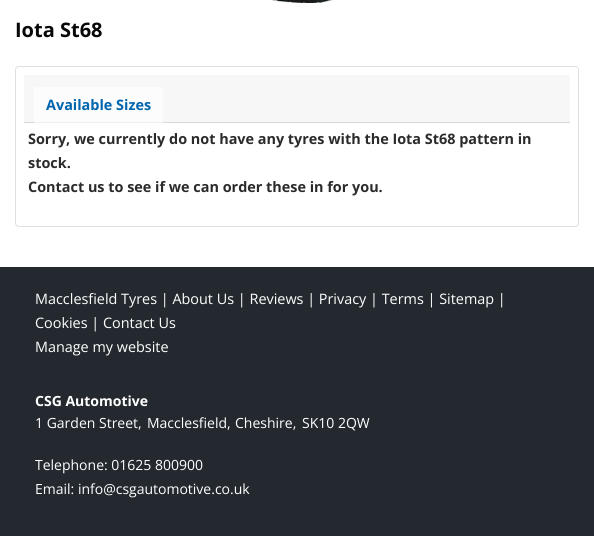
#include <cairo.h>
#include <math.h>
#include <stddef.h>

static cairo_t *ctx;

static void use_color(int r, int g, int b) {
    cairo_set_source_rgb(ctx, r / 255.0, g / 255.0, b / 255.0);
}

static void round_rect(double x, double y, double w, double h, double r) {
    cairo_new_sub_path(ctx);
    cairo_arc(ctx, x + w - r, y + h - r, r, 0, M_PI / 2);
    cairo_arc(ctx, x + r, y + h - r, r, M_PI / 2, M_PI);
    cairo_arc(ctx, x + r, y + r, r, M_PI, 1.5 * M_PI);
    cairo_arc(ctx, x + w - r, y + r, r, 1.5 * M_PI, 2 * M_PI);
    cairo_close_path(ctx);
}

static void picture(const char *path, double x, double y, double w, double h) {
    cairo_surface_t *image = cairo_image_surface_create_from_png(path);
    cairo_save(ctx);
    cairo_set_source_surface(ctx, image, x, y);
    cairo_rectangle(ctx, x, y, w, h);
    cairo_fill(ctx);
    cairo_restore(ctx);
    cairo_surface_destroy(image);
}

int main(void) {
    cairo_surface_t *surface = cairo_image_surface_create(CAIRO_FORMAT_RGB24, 594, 536);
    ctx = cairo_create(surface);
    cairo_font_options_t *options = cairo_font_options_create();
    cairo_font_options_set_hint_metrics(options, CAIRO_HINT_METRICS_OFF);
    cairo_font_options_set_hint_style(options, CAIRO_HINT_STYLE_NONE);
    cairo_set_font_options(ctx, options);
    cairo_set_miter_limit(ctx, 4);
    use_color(255, 255, 255);
    cairo_paint(ctx);
    picture("img1.png", 271, 0, 62, 3);
    cairo_select_font_face(ctx, "Open Sans", CAIRO_FONT_SLANT_NORMAL, CAIRO_FONT_WEIGHT_BOLD);
    cairo_set_font_size(ctx, 20);
    use_color(8, 8, 8);
    cairo_move_to(ctx, 15, 37);
    cairo_show_text(ctx, "Iota St68");
    round_rect(15.5, 66.5, 563, 160, 3.5);
    use_color(223, 223, 223);
    cairo_set_line_width(ctx, 1);
    cairo_stroke(ctx);
    use_color(247, 247, 247);
    cairo_rectangle(ctx, 24, 75, 546, 47);
    cairo_fill(ctx);
    use_color(252, 252, 252);
    cairo_rectangle(ctx, 34, 87, 129, 35);
    cairo_fill(ctx);
    use_color(216, 216, 216);
    cairo_rectangle(ctx, 24, 122, 546, 1);
    cairo_fill(ctx);
    use_color(239, 239, 239);
    cairo_rectangle(ctx, 34, 122, 129, 1);
    cairo_fill(ctx);
    cairo_set_font_size(ctx, 14.4);
    use_color(0, 101, 173);
    cairo_move_to(ctx, 46, 110);
    cairo_show_text(ctx, "Available Sizes");
    use_color(43, 43, 43);
    cairo_move_to(ctx, 28, 144);
    cairo_show_text(ctx, "Sorry, we currently do not have any tyres with the Iota St68 pattern in");
    cairo_move_to(ctx, 28, 168);
    cairo_show_text(ctx, "stock.");
    cairo_move_to(ctx, 28, 192);
    cairo_show_text(ctx, "Contact us to see if we can order these in for you.");
    use_color(36, 41, 47);
    cairo_rectangle(ctx, 0, 267, 594, 269);
    cairo_fill(ctx);
    cairo_select_font_face(ctx, "Open Sans", CAIRO_FONT_SLANT_NORMAL, CAIRO_FONT_WEIGHT_NORMAL);
    use_color(255, 255, 255);
    cairo_move_to(ctx, 35, 304);
    cairo_show_text(ctx, "Macclesfield Tyres | About Us | Reviews | Privacy | Terms | Sitemap |");
    cairo_move_to(ctx, 35, 328);
    cairo_show_text(ctx, "Cookies | Contact Us");
    cairo_move_to(ctx, 35, 352);
    cairo_show_text(ctx, "Manage my website");
    cairo_select_font_face(ctx, "Open Sans", CAIRO_FONT_SLANT_NORMAL, CAIRO_FONT_WEIGHT_BOLD);
    cairo_set_font_size(ctx, 14);
    cairo_move_to(ctx, 35, 406);
    cairo_show_text(ctx, "CSG Automotive");
    cairo_select_font_face(ctx, "Open Sans", CAIRO_FONT_SLANT_NORMAL, CAIRO_FONT_WEIGHT_NORMAL);
    cairo_move_to(ctx, 35, 428);
    cairo_show_text(ctx, "1 Garden Street,");
    cairo_move_to(ctx, 147, 428);
    cairo_show_text(ctx, "Macclesfield,");
    cairo_move_to(ctx, 235, 428);
    cairo_show_text(ctx, "Cheshire,");
    cairo_move_to(ctx, 302, 428);
    cairo_show_text(ctx, "SK10 2QW");
    cairo_move_to(ctx, 35, 470);
    cairo_show_text(ctx, "Telephone: 01625 800900");
    cairo_move_to(ctx, 35, 494);
    cairo_show_text(ctx, "Email: info@csgautomotive.co.uk");
    cairo_surface_write_to_png(surface, "result.png");
    cairo_font_options_destroy(options);
    cairo_destroy(ctx);
    cairo_surface_destroy(surface);
    return 0;
}
